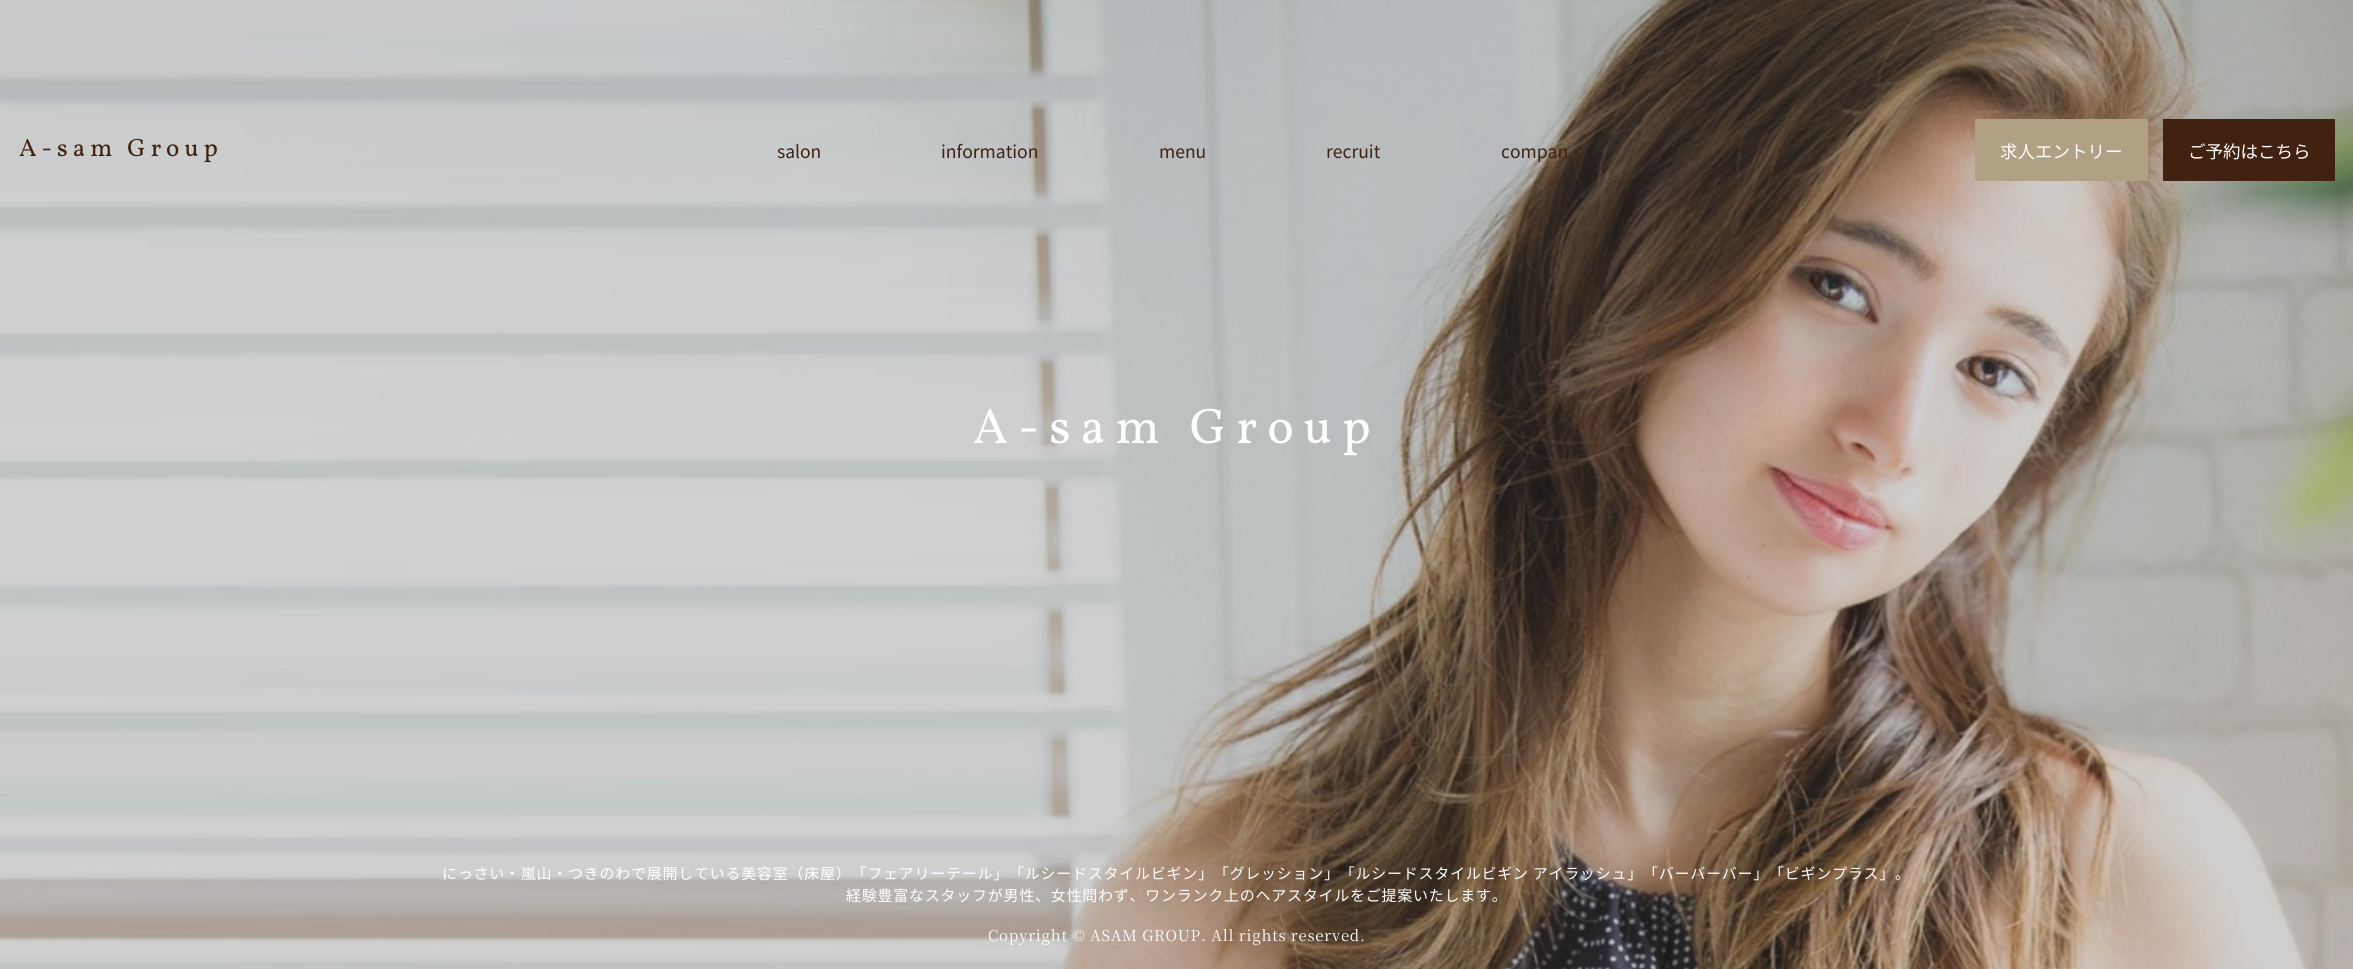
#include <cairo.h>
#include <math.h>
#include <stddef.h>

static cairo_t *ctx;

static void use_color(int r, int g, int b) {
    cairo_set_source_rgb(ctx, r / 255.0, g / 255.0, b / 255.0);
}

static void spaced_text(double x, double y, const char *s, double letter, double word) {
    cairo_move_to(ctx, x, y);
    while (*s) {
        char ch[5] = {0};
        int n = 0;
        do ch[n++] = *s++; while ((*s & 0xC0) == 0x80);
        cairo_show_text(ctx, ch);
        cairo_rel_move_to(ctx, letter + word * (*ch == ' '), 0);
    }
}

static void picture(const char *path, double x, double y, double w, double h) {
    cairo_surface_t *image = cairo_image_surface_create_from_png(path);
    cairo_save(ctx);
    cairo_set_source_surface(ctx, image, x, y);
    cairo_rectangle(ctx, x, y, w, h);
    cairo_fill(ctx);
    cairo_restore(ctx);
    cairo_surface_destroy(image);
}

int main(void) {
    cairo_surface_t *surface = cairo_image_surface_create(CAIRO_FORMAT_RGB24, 2353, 969);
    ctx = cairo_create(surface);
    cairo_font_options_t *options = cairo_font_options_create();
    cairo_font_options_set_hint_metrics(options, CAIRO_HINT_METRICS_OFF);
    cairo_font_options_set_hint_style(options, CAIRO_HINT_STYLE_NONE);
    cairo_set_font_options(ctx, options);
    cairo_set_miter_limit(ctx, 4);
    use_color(255, 255, 255);
    cairo_paint(ctx);
    picture("img1.png", 0, 0, 2353, 969);
    cairo_select_font_face(ctx, "Vollkorn", CAIRO_FONT_SLANT_NORMAL, CAIRO_FONT_WEIGHT_NORMAL);
    cairo_set_font_size(ctx, 25);
    use_color(65, 33, 15);
    spaced_text(19, 156, "A-sam Group", 5, 0);
    cairo_select_font_face(ctx, "Noto Sans JP", CAIRO_FONT_SLANT_NORMAL, CAIRO_FONT_WEIGHT_NORMAL);
    cairo_set_font_size(ctx, 17.5);
    cairo_move_to(ctx, 777, 158);
    cairo_show_text(ctx, "salon");
    cairo_move_to(ctx, 941, 158);
    cairo_show_text(ctx, "information");
    cairo_move_to(ctx, 1159, 158);
    cairo_show_text(ctx, "menu");
    cairo_move_to(ctx, 1326, 158);
    cairo_show_text(ctx, "recruit");
    cairo_move_to(ctx, 1501, 158);
    cairo_show_text(ctx, "compan");
    use_color(177, 161, 132);
    cairo_rectangle(ctx, 1975, 119, 173, 62);
    cairo_fill(ctx);
    use_color(255, 255, 255);
    cairo_move_to(ctx, 2000, 158);
    cairo_show_text(ctx, "求人エントリー");
    use_color(65, 33, 15);
    cairo_rectangle(ctx, 2163, 119, 172, 62);
    cairo_fill(ctx);
    use_color(255, 255, 255);
    cairo_move_to(ctx, 2188, 158);
    cairo_show_text(ctx, "ご予約はこちら");
    cairo_select_font_face(ctx, "Vollkorn", CAIRO_FONT_SLANT_NORMAL, CAIRO_FONT_WEIGHT_NORMAL);
    cairo_set_font_size(ctx, 50);
    spaced_text(973, 443, "A-sam Group", 10, 0);
    cairo_select_font_face(ctx, "Noto Sans JP", CAIRO_FONT_SLANT_NORMAL, CAIRO_FONT_WEIGHT_NORMAL);
    cairo_set_font_size(ctx, 15);
    spaced_text(442, 879, "にっさい・嵐山・つきのわで展開している美容室（床屋）「フェアリーテール」「ルシードスタイルビギン」「グレッション」「ルシードスタイルビギン アイラッシュ」「バーバーバー」「ビギンプラス」。", 0.75, 0);
    spaced_text(846, 901, "経験豊富なスタッフが男性、女性問わず、ワンランク上のヘアスタイルをご提案いたします。", 0.75, 0);
    cairo_select_font_face(ctx, "Noto Serif JP", CAIRO_FONT_SLANT_NORMAL, CAIRO_FONT_WEIGHT_NORMAL);
    spaced_text(988, 941, "Copyright © ASAM GROUP. All rights reserved.", 0.75, 0);
    cairo_surface_write_to_png(surface, "result.png");
    cairo_font_options_destroy(options);
    cairo_destroy(ctx);
    cairo_surface_destroy(surface);
    return 0;
}
